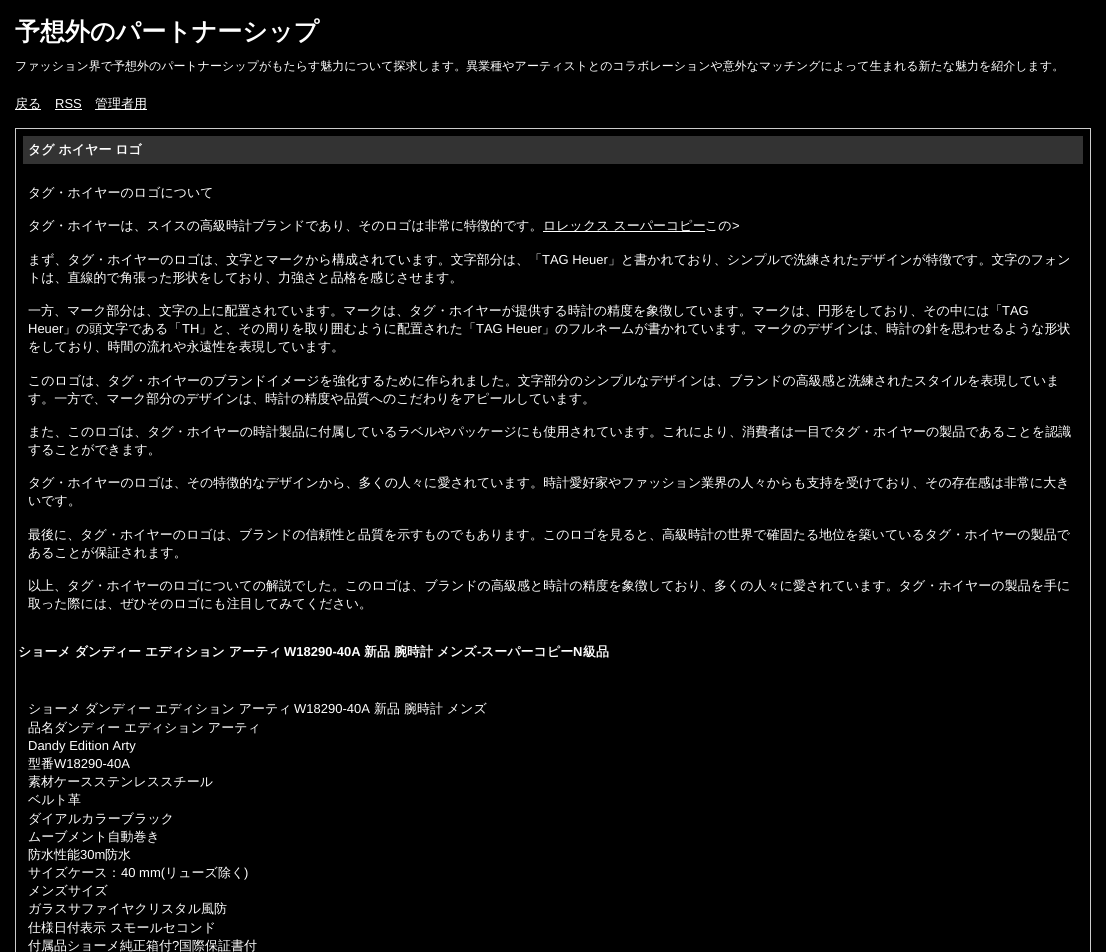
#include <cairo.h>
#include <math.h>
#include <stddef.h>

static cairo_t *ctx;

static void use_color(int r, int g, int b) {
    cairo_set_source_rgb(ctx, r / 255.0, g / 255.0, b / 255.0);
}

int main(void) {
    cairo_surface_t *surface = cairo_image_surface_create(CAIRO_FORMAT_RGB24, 1106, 952);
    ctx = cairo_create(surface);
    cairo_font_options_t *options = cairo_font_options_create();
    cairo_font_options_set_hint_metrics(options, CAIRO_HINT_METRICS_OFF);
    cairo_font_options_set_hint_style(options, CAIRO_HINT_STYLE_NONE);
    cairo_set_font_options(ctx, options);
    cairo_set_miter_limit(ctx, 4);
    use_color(0, 0, 0);
    cairo_paint(ctx);
    cairo_select_font_face(ctx, "WenQuanYi Zen Hei", CAIRO_FONT_SLANT_NORMAL, CAIRO_FONT_WEIGHT_BOLD);
    cairo_set_font_size(ctx, 25);
    use_color(255, 255, 255);
    cairo_move_to(ctx, 15, 40);
    cairo_show_text(ctx, "予想外のパートナーシップ");
    cairo_select_font_face(ctx, "WenQuanYi Zen Hei Medium", CAIRO_FONT_SLANT_NORMAL, CAIRO_FONT_WEIGHT_NORMAL);
    cairo_set_font_size(ctx, 12);
    cairo_move_to(ctx, 15, 70);
    cairo_show_text(ctx, "ファッション界で予想外のパートナーシップがもたらす魅力について探求します。異業種やアーティストとのコラボレーションや意外なマッチングによって生まれる新たな魅力を紹介します。");
    cairo_rectangle(ctx, 15, 109, 26, 1);
    cairo_fill(ctx);
    cairo_set_font_size(ctx, 13);
    cairo_move_to(ctx, 15, 108);
    cairo_show_text(ctx, "戻る");
    cairo_select_font_face(ctx, "Liberation Sans", CAIRO_FONT_SLANT_NORMAL, CAIRO_FONT_WEIGHT_NORMAL);
    cairo_move_to(ctx, 55, 108);
    cairo_show_text(ctx, "RSS");
    cairo_rectangle(ctx, 55, 109, 27, 1);
    cairo_fill(ctx);
    cairo_rectangle(ctx, 95, 109, 52, 1);
    cairo_fill(ctx);
    cairo_select_font_face(ctx, "WenQuanYi Zen Hei Medium", CAIRO_FONT_SLANT_NORMAL, CAIRO_FONT_WEIGHT_NORMAL);
    cairo_move_to(ctx, 95, 108);
    cairo_show_text(ctx, "管理者用");
    cairo_rectangle(ctx, 15.5, 128.5, 1075, 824);
    use_color(204, 204, 204);
    cairo_set_line_width(ctx, 1);
    cairo_stroke(ctx);
    use_color(51, 51, 51);
    cairo_rectangle(ctx, 23, 136, 1060, 28);
    cairo_fill(ctx);
    cairo_select_font_face(ctx, "WenQuanYi Zen Hei", CAIRO_FONT_SLANT_NORMAL, CAIRO_FONT_WEIGHT_BOLD);
    use_color(255, 255, 255);
    cairo_move_to(ctx, 28, 154);
    cairo_show_text(ctx, "タグ ホイヤー ロゴ");
    cairo_select_font_face(ctx, "WenQuanYi Zen Hei Medium", CAIRO_FONT_SLANT_NORMAL, CAIRO_FONT_WEIGHT_NORMAL);
    cairo_move_to(ctx, 28, 197);
    cairo_show_text(ctx, "タグ・ホイヤーのロゴについて");
    cairo_move_to(ctx, 28, 230);
    cairo_show_text(ctx, "タグ・ホイヤーは、スイスの高級時計ブランドであり、そのロゴは非常に特徴的です。");
    cairo_rectangle(ctx, 543, 231, 162, 1);
    cairo_fill(ctx);
    cairo_move_to(ctx, 543, 230);
    cairo_show_text(ctx, "ロレックス スーパーコピー");
    cairo_move_to(ctx, 705, 230);
    cairo_show_text(ctx, "この");
    cairo_select_font_face(ctx, "Liberation Sans", CAIRO_FONT_SLANT_NORMAL, CAIRO_FONT_WEIGHT_NORMAL);
    cairo_move_to(ctx, 732, 230);
    cairo_show_text(ctx, ">");
    cairo_select_font_face(ctx, "WenQuanYi Zen Hei Medium", CAIRO_FONT_SLANT_NORMAL, CAIRO_FONT_WEIGHT_NORMAL);
    cairo_move_to(ctx, 28, 264);
    cairo_show_text(ctx, "まず、タグ・ホイヤーのロゴは、文字とマークから構成されています。文字部分は、「");
    cairo_select_font_face(ctx, "Liberation Sans", CAIRO_FONT_SLANT_NORMAL, CAIRO_FONT_WEIGHT_NORMAL);
    cairo_move_to(ctx, 542, 264);
    cairo_show_text(ctx, "TAG Heuer");
    cairo_select_font_face(ctx, "WenQuanYi Zen Hei Medium", CAIRO_FONT_SLANT_NORMAL, CAIRO_FONT_WEIGHT_NORMAL);
    cairo_move_to(ctx, 608, 264);
    cairo_show_text(ctx, "」と書かれており、シンプルで洗練されたデザインが特徴です。文字のフォン");
    cairo_move_to(ctx, 28, 282);
    cairo_show_text(ctx, "トは、直線的で角張った形状をしており、力強さと品格を感じさせます。");
    cairo_move_to(ctx, 28, 315);
    cairo_show_text(ctx, "一方、マーク部分は、文字の上に配置されています。マークは、タグ・ホイヤーが提供する時計の精度を象徴しています。マークは、円形をしており、その中には「");
    cairo_select_font_face(ctx, "Liberation Sans", CAIRO_FONT_SLANT_NORMAL, CAIRO_FONT_WEIGHT_NORMAL);
    cairo_move_to(ctx, 1002, 315);
    cairo_show_text(ctx, "TAG");
    cairo_move_to(ctx, 28, 333);
    cairo_show_text(ctx, "Heuer");
    cairo_select_font_face(ctx, "WenQuanYi Zen Hei Medium", CAIRO_FONT_SLANT_NORMAL, CAIRO_FONT_WEIGHT_NORMAL);
    cairo_move_to(ctx, 63, 333);
    cairo_show_text(ctx, "」の頭文字である「");
    cairo_select_font_face(ctx, "Liberation Sans", CAIRO_FONT_SLANT_NORMAL, CAIRO_FONT_WEIGHT_NORMAL);
    cairo_move_to(ctx, 182, 333);
    cairo_show_text(ctx, "TH");
    cairo_select_font_face(ctx, "WenQuanYi Zen Hei Medium", CAIRO_FONT_SLANT_NORMAL, CAIRO_FONT_WEIGHT_NORMAL);
    cairo_move_to(ctx, 199, 333);
    cairo_show_text(ctx, "」と、その周りを取り囲むように配置された「");
    cairo_select_font_face(ctx, "Liberation Sans", CAIRO_FONT_SLANT_NORMAL, CAIRO_FONT_WEIGHT_NORMAL);
    cairo_move_to(ctx, 476, 333);
    cairo_show_text(ctx, "TAG Heuer");
    cairo_select_font_face(ctx, "WenQuanYi Zen Hei Medium", CAIRO_FONT_SLANT_NORMAL, CAIRO_FONT_WEIGHT_NORMAL);
    cairo_move_to(ctx, 542, 333);
    cairo_show_text(ctx, "」のフルネームが書かれています。マークのデザインは、時計の針を思わせるような形状");
    cairo_move_to(ctx, 28, 351);
    cairo_show_text(ctx, "をしており、時間の流れや永遠性を表現しています。");
    cairo_move_to(ctx, 28, 385);
    cairo_show_text(ctx, "このロゴは、タグ・ホイヤーのブランドイメージを強化するために作られました。文字部分のシンプルなデザインは、ブランドの高級感と洗練されたスタイルを表現していま");
    cairo_move_to(ctx, 28, 403);
    cairo_show_text(ctx, "す。一方で、マーク部分のデザインは、時計の精度や品質へのこだわりをアピールしています。");
    cairo_move_to(ctx, 28, 436);
    cairo_show_text(ctx, "また、このロゴは、タグ・ホイヤーの時計製品に付属しているラベルやパッケージにも使用されています。これにより、消費者は一目でタグ・ホイヤーの製品であることを認識");
    cairo_move_to(ctx, 28, 454);
    cairo_show_text(ctx, "することができます。");
    cairo_move_to(ctx, 28, 487);
    cairo_show_text(ctx, "タグ・ホイヤーのロゴは、その特徴的なデザインから、多くの人々に愛されています。時計愛好家やファッション業界の人々からも支持を受けており、その存在感は非常に大き");
    cairo_move_to(ctx, 28, 505);
    cairo_show_text(ctx, "いです。");
    cairo_move_to(ctx, 28, 539);
    cairo_show_text(ctx, "最後に、タグ・ホイヤーのロゴは、ブランドの信頼性と品質を示すものでもあります。このロゴを見ると、高級時計の世界で確固たる地位を築いているタグ・ホイヤーの製品で");
    cairo_move_to(ctx, 28, 557);
    cairo_show_text(ctx, "あることが保証されます。");
    cairo_move_to(ctx, 28, 590);
    cairo_show_text(ctx, "以上、タグ・ホイヤーのロゴについての解説でした。このロゴは、ブランドの高級感と時計の精度を象徴しており、多くの人々に愛されています。タグ・ホイヤーの製品を手に");
    cairo_move_to(ctx, 28, 608);
    cairo_show_text(ctx, "取った際には、ぜひそのロゴにも注目してみてください。");
    cairo_select_font_face(ctx, "WenQuanYi Zen Hei", CAIRO_FONT_SLANT_NORMAL, CAIRO_FONT_WEIGHT_BOLD);
    cairo_move_to(ctx, 18, 656);
    cairo_show_text(ctx, "ショーメ ダンディー エディション アーティ");
    cairo_select_font_face(ctx, "Liberation Sans", CAIRO_FONT_SLANT_NORMAL, CAIRO_FONT_WEIGHT_BOLD);
    cairo_move_to(ctx, 284, 656);
    cairo_show_text(ctx, "W18290-40A");
    cairo_select_font_face(ctx, "WenQuanYi Zen Hei", CAIRO_FONT_SLANT_NORMAL, CAIRO_FONT_WEIGHT_BOLD);
    cairo_move_to(ctx, 364, 656);
    cairo_show_text(ctx, "新品 腕時計 メンズ");
    cairo_select_font_face(ctx, "Liberation Sans", CAIRO_FONT_SLANT_NORMAL, CAIRO_FONT_WEIGHT_BOLD);
    cairo_move_to(ctx, 477, 656);
    cairo_show_text(ctx, "-");
    cairo_select_font_face(ctx, "WenQuanYi Zen Hei", CAIRO_FONT_SLANT_NORMAL, CAIRO_FONT_WEIGHT_BOLD);
    cairo_move_to(ctx, 481, 656);
    cairo_show_text(ctx, "スーパーコピー");
    cairo_select_font_face(ctx, "Liberation Sans", CAIRO_FONT_SLANT_NORMAL, CAIRO_FONT_WEIGHT_BOLD);
    cairo_move_to(ctx, 573, 656);
    cairo_show_text(ctx, "N");
    cairo_select_font_face(ctx, "WenQuanYi Zen Hei", CAIRO_FONT_SLANT_NORMAL, CAIRO_FONT_WEIGHT_BOLD);
    cairo_move_to(ctx, 583, 656);
    cairo_show_text(ctx, "級品");
    cairo_select_font_face(ctx, "WenQuanYi Zen Hei Medium", CAIRO_FONT_SLANT_NORMAL, CAIRO_FONT_WEIGHT_NORMAL);
    cairo_move_to(ctx, 28, 713);
    cairo_show_text(ctx, "ショーメ ダンディー エディション アーティ");
    cairo_select_font_face(ctx, "Liberation Sans", CAIRO_FONT_SLANT_NORMAL, CAIRO_FONT_WEIGHT_NORMAL);
    cairo_move_to(ctx, 294, 713);
    cairo_show_text(ctx, "W18290-40A");
    cairo_select_font_face(ctx, "WenQuanYi Zen Hei Medium", CAIRO_FONT_SLANT_NORMAL, CAIRO_FONT_WEIGHT_NORMAL);
    cairo_move_to(ctx, 374, 713);
    cairo_show_text(ctx, "新品 腕時計 メンズ");
    cairo_move_to(ctx, 28, 732);
    cairo_show_text(ctx, "品名ダンディー エディション アーティ");
    cairo_select_font_face(ctx, "Liberation Sans", CAIRO_FONT_SLANT_NORMAL, CAIRO_FONT_WEIGHT_NORMAL);
    cairo_move_to(ctx, 28, 750);
    cairo_show_text(ctx, "Dandy Edition Arty");
    cairo_select_font_face(ctx, "WenQuanYi Zen Hei Medium", CAIRO_FONT_SLANT_NORMAL, CAIRO_FONT_WEIGHT_NORMAL);
    cairo_move_to(ctx, 28, 768);
    cairo_show_text(ctx, "型番");
    cairo_select_font_face(ctx, "Liberation Sans", CAIRO_FONT_SLANT_NORMAL, CAIRO_FONT_WEIGHT_NORMAL);
    cairo_move_to(ctx, 54, 768);
    cairo_show_text(ctx, "W18290-40A");
    cairo_select_font_face(ctx, "WenQuanYi Zen Hei Medium", CAIRO_FONT_SLANT_NORMAL, CAIRO_FONT_WEIGHT_NORMAL);
    cairo_move_to(ctx, 28, 786);
    cairo_show_text(ctx, "素材ケースステンレススチール");
    cairo_move_to(ctx, 28, 804);
    cairo_show_text(ctx, "ベルト革");
    cairo_move_to(ctx, 28, 823);
    cairo_show_text(ctx, "ダイアルカラーブラック");
    cairo_move_to(ctx, 28, 841);
    cairo_show_text(ctx, "ムーブメント自動巻き");
    cairo_move_to(ctx, 28, 859);
    cairo_show_text(ctx, "防水性能");
    cairo_select_font_face(ctx, "Liberation Sans", CAIRO_FONT_SLANT_NORMAL, CAIRO_FONT_WEIGHT_NORMAL);
    cairo_move_to(ctx, 80, 859);
    cairo_show_text(ctx, "30m");
    cairo_select_font_face(ctx, "WenQuanYi Zen Hei Medium", CAIRO_FONT_SLANT_NORMAL, CAIRO_FONT_WEIGHT_NORMAL);
    cairo_move_to(ctx, 105, 859);
    cairo_show_text(ctx, "防水");
    cairo_move_to(ctx, 28, 877);
    cairo_show_text(ctx, "サイズケース：");
    cairo_select_font_face(ctx, "Liberation Sans", CAIRO_FONT_SLANT_NORMAL, CAIRO_FONT_WEIGHT_NORMAL);
    cairo_move_to(ctx, 121, 877);
    cairo_show_text(ctx, "40 mm(");
    cairo_select_font_face(ctx, "WenQuanYi Zen Hei Medium", CAIRO_FONT_SLANT_NORMAL, CAIRO_FONT_WEIGHT_NORMAL);
    cairo_move_to(ctx, 165, 877);
    cairo_show_text(ctx, "リューズ除く");
    cairo_select_font_face(ctx, "Liberation Sans", CAIRO_FONT_SLANT_NORMAL, CAIRO_FONT_WEIGHT_NORMAL);
    cairo_move_to(ctx, 244, 877);
    cairo_show_text(ctx, ")");
    cairo_select_font_face(ctx, "WenQuanYi Zen Hei Medium", CAIRO_FONT_SLANT_NORMAL, CAIRO_FONT_WEIGHT_NORMAL);
    cairo_move_to(ctx, 28, 895);
    cairo_show_text(ctx, "メンズサイズ");
    cairo_move_to(ctx, 28, 913);
    cairo_show_text(ctx, "ガラスサファイヤクリスタル風防");
    cairo_move_to(ctx, 28, 932);
    cairo_show_text(ctx, "仕様日付表示 スモールセコンド");
    cairo_move_to(ctx, 28, 950);
    cairo_show_text(ctx, "付属品ショーメ純正箱付");
    cairo_select_font_face(ctx, "Liberation Sans", CAIRO_FONT_SLANT_NORMAL, CAIRO_FONT_WEIGHT_NORMAL);
    cairo_move_to(ctx, 172, 950);
    cairo_show_text(ctx, "?");
    cairo_select_font_face(ctx, "WenQuanYi Zen Hei Medium", CAIRO_FONT_SLANT_NORMAL, CAIRO_FONT_WEIGHT_NORMAL);
    cairo_move_to(ctx, 179, 950);
    cairo_show_text(ctx, "国際保証書付");
    cairo_surface_write_to_png(surface, "result.png");
    cairo_font_options_destroy(options);
    cairo_destroy(ctx);
    cairo_surface_destroy(surface);
    return 0;
}
